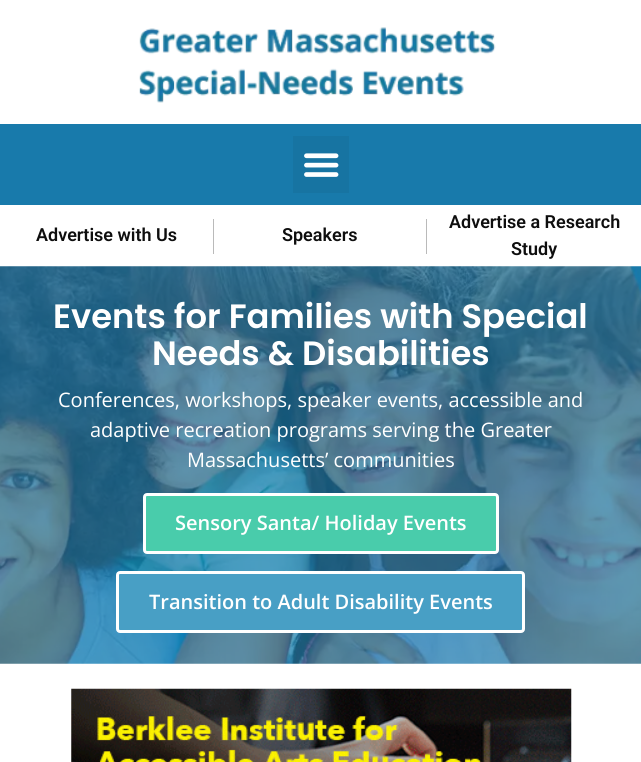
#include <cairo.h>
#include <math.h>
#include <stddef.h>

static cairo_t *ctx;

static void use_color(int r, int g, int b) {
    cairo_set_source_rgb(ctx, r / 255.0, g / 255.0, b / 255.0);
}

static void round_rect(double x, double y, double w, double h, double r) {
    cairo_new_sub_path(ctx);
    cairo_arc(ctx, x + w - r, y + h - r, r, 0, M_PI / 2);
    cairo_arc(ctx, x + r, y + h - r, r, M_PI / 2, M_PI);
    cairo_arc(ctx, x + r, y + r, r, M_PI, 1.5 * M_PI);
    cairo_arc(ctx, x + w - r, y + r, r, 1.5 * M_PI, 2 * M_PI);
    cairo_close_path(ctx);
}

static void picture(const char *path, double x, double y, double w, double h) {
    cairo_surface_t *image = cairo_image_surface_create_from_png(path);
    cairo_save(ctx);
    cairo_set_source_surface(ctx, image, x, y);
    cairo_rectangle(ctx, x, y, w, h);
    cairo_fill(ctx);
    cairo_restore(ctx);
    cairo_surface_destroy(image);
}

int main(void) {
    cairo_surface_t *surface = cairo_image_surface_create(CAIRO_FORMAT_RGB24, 641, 762);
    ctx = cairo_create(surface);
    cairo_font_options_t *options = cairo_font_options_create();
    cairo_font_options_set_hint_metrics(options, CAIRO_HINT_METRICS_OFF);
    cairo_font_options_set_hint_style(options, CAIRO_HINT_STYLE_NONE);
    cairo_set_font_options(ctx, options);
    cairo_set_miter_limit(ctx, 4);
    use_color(255, 255, 255);
    cairo_paint(ctx);
    picture("img1.png", 139, 27, 357, 76);
    use_color(24, 122, 171);
    cairo_rectangle(ctx, 0, 124, 641, 81);
    cairo_fill(ctx);
    use_color(23, 116, 162);
    cairo_rectangle(ctx, 293, 136, 56, 57);
    cairo_fill(ctx);
    picture("img2.png", 304, 153, 35, 24);
    use_color(186, 186, 186);
    cairo_rectangle(ctx, 213, 219, 1, 35);
    cairo_fill(ctx);
    cairo_select_font_face(ctx, "Roboto SemiBold", CAIRO_FONT_SLANT_NORMAL, CAIRO_FONT_WEIGHT_NORMAL);
    cairo_set_font_size(ctx, 18);
    use_color(14, 14, 14);
    cairo_move_to(ctx, 36, 241);
    cairo_show_text(ctx, "Advertise with Us");
    use_color(186, 186, 186);
    cairo_rectangle(ctx, 426, 219, 1, 35);
    cairo_fill(ctx);
    use_color(14, 14, 14);
    cairo_move_to(ctx, 282, 241);
    cairo_show_text(ctx, "Speakers");
    cairo_move_to(ctx, 449, 228);
    cairo_show_text(ctx, "Advertise a Research");
    cairo_move_to(ctx, 511, 255);
    cairo_show_text(ctx, "Study");
    picture("img3.png", 0, 266, 641, 398);
    cairo_select_font_face(ctx, "Poppins SemiBold", CAIRO_FONT_SLANT_NORMAL, CAIRO_FONT_WEIGHT_NORMAL);
    cairo_set_font_size(ctx, 33.75);
    use_color(255, 255, 255);
    cairo_move_to(ctx, 53, 328);
    cairo_show_text(ctx, "Events for Families with Special");
    cairo_move_to(ctx, 152, 365);
    cairo_show_text(ctx, "Needs & Disabilities");
    cairo_select_font_face(ctx, "Open Sans", CAIRO_FONT_SLANT_NORMAL, CAIRO_FONT_WEIGHT_NORMAL);
    cairo_set_font_size(ctx, 20);
    cairo_move_to(ctx, 58, 407);
    cairo_show_text(ctx, "Conferences, workshops, speaker events, accessible and");
    cairo_move_to(ctx, 90, 437);
    cairo_show_text(ctx, "adaptive recreation programs serving the Greater");
    cairo_move_to(ctx, 187, 467);
    cairo_show_text(ctx, "Massachusetts’ communities");
    use_color(73, 204, 171);
    round_rect(144.5, 494.5, 353, 58, 2.5);
    cairo_fill_preserve(ctx);
    use_color(255, 255, 255);
    cairo_set_line_width(ctx, 3);
    cairo_stroke(ctx);
    cairo_select_font_face(ctx, "Open Sans SemiBold", CAIRO_FONT_SLANT_NORMAL, CAIRO_FONT_WEIGHT_NORMAL);
    cairo_move_to(ctx, 175, 530);
    cairo_show_text(ctx, "Sensory Santa/ Holiday Events");
    use_color(72, 159, 197);
    round_rect(117.5, 572.5, 406, 59, 2.5);
    cairo_fill_preserve(ctx);
    use_color(255, 255, 255);
    cairo_stroke(ctx);
    cairo_move_to(ctx, 149, 609);
    cairo_show_text(ctx, "Transition to Adult Disability Events");
    picture("img4.png", 71, 688, 501, 74);
    cairo_surface_write_to_png(surface, "result.png");
    cairo_font_options_destroy(options);
    cairo_destroy(ctx);
    cairo_surface_destroy(surface);
    return 0;
}
